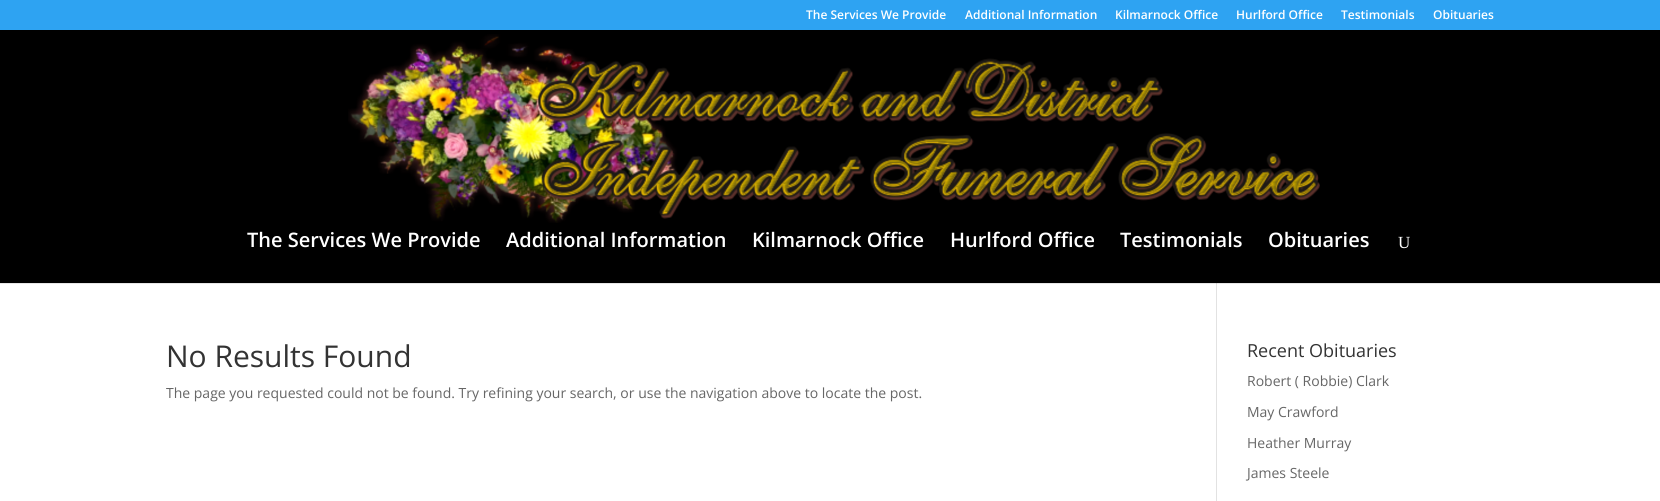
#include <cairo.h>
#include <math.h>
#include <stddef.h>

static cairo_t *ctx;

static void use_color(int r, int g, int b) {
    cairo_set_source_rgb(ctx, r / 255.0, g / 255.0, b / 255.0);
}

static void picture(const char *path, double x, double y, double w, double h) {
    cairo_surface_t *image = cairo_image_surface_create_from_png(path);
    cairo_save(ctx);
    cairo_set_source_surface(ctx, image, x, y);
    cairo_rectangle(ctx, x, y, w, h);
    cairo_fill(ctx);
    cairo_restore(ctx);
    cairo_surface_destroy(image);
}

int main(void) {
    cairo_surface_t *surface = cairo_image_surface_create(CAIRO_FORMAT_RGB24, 1660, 501);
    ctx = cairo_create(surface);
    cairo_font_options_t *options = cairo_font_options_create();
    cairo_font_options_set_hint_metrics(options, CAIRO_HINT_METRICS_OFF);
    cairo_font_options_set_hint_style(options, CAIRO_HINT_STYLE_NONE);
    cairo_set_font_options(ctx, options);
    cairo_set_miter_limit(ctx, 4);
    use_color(255, 255, 255);
    cairo_paint(ctx);
    use_color(230, 230, 230);
    cairo_rectangle(ctx, 0, 283, 1660, 1);
    cairo_fill(ctx);
    use_color(46, 163, 242);
    cairo_rectangle(ctx, 0, 0, 1660, 30);
    cairo_fill(ctx);
    cairo_select_font_face(ctx, "Open Sans SemiBold", CAIRO_FONT_SLANT_NORMAL, CAIRO_FONT_WEIGHT_NORMAL);
    cairo_set_font_size(ctx, 12);
    use_color(255, 255, 255);
    cairo_move_to(ctx, 806, 19);
    cairo_show_text(ctx, "The Services We Provide");
    cairo_move_to(ctx, 965, 19);
    cairo_show_text(ctx, "Additional Information");
    cairo_move_to(ctx, 1115, 19);
    cairo_show_text(ctx, "Kilmarnock Office");
    cairo_move_to(ctx, 1236, 19);
    cairo_show_text(ctx, "Hurlford Office");
    cairo_move_to(ctx, 1341, 19);
    cairo_show_text(ctx, "Testimonials");
    cairo_move_to(ctx, 1433, 19);
    cairo_show_text(ctx, "Obituaries");
    use_color(0, 0, 0);
    cairo_rectangle(ctx, 0, 30, 1660, 253);
    cairo_fill(ctx);
    picture("img1.png", 348, 34, 972, 189);
    cairo_set_font_size(ctx, 20);
    use_color(255, 255, 255);
    cairo_move_to(ctx, 247, 247);
    cairo_show_text(ctx, "The Services We Provide");
    cairo_move_to(ctx, 506, 247);
    cairo_show_text(ctx, "Additional Information");
    cairo_move_to(ctx, 752, 247);
    cairo_show_text(ctx, "Kilmarnock Office");
    cairo_move_to(ctx, 950, 247);
    cairo_show_text(ctx, "Hurlford Office");
    cairo_move_to(ctx, 1120, 247);
    cairo_show_text(ctx, "Testimonials");
    cairo_move_to(ctx, 1268, 247);
    cairo_show_text(ctx, "Obituaries");
    cairo_select_font_face(ctx, "Liberation Serif", CAIRO_FONT_SLANT_NORMAL, CAIRO_FONT_WEIGHT_NORMAL);
    cairo_set_font_size(ctx, 17);
    cairo_move_to(ctx, 1398, 248);
    cairo_show_text(ctx, "U");
    use_color(226, 226, 226);
    cairo_rectangle(ctx, 1216, 283, 1, 218);
    cairo_fill(ctx);
    use_color(203, 203, 203);
    cairo_rectangle(ctx, 1216, 283, 1, 1);
    cairo_fill(ctx);
    cairo_select_font_face(ctx, "Open Sans", CAIRO_FONT_SLANT_NORMAL, CAIRO_FONT_WEIGHT_NORMAL);
    cairo_set_font_size(ctx, 30);
    use_color(51, 51, 51);
    cairo_move_to(ctx, 166, 367);
    cairo_show_text(ctx, "No Results Found");
    cairo_set_font_size(ctx, 14);
    use_color(102, 102, 102);
    cairo_move_to(ctx, 166, 398);
    cairo_show_text(ctx, "The page you requested could not be found. Try refining your search, or use the navigation above to locate the post.");
    cairo_set_font_size(ctx, 18);
    use_color(51, 51, 51);
    cairo_move_to(ctx, 1247, 357);
    cairo_show_text(ctx, "Recent Obituaries");
    cairo_set_font_size(ctx, 14);
    use_color(102, 102, 102);
    cairo_move_to(ctx, 1247, 386);
    cairo_show_text(ctx, "Robert ( Robbie) Clark");
    cairo_move_to(ctx, 1247, 417);
    cairo_show_text(ctx, "May Crawford");
    cairo_move_to(ctx, 1247, 448);
    cairo_show_text(ctx, "Heather Murray");
    cairo_move_to(ctx, 1247, 478);
    cairo_show_text(ctx, "James Steele");
    cairo_surface_write_to_png(surface, "result.png");
    cairo_font_options_destroy(options);
    cairo_destroy(ctx);
    cairo_surface_destroy(surface);
    return 0;
}
